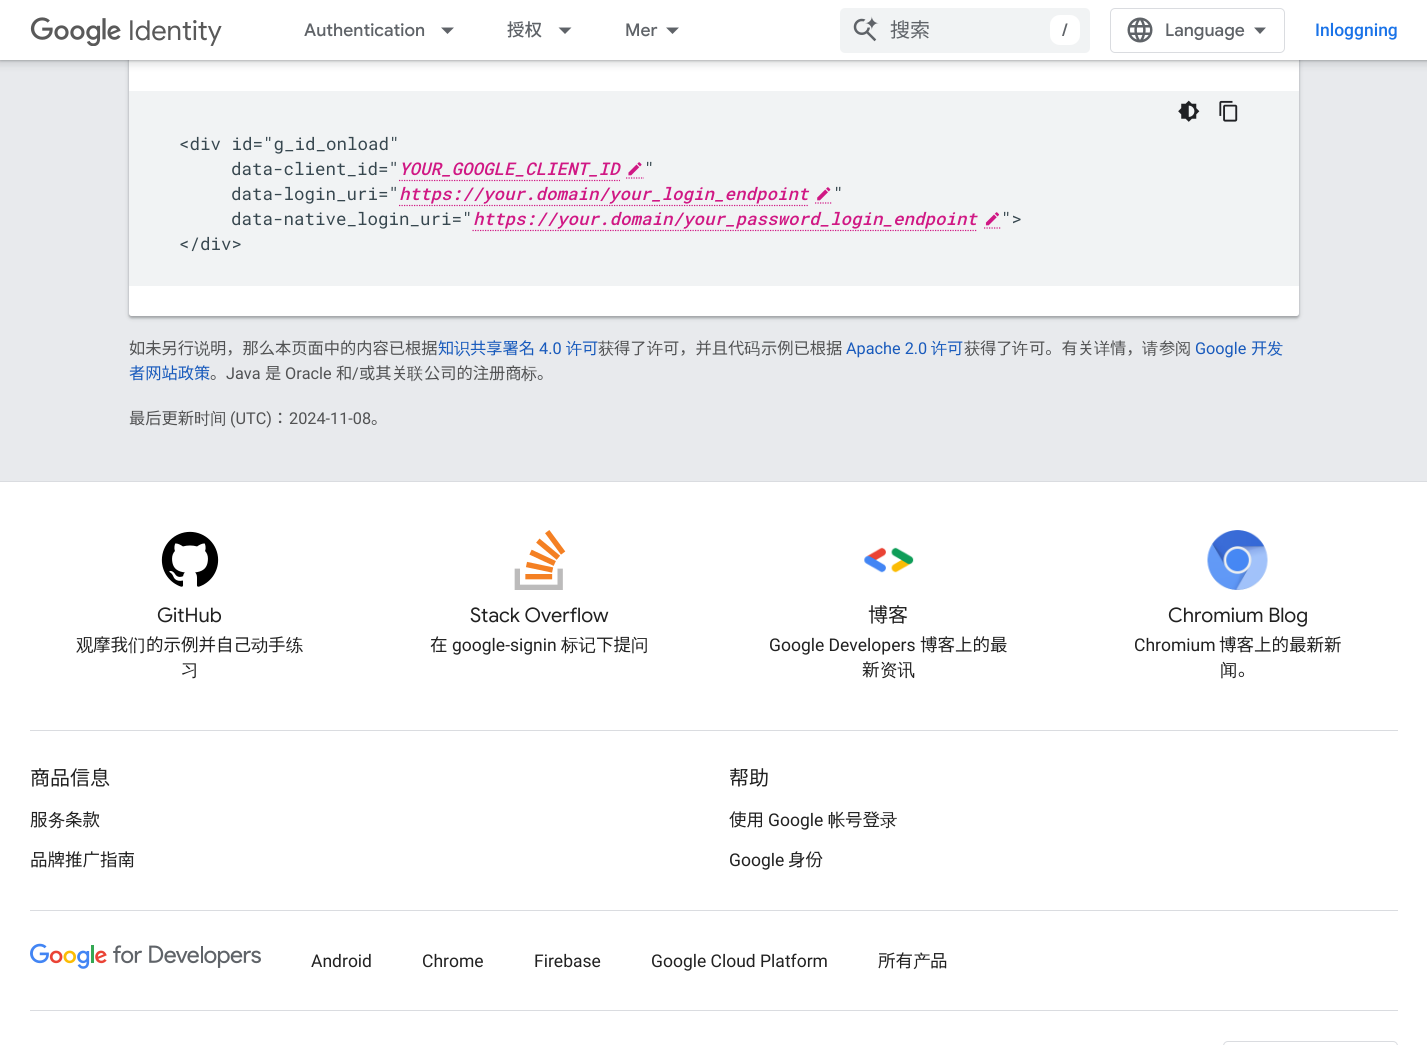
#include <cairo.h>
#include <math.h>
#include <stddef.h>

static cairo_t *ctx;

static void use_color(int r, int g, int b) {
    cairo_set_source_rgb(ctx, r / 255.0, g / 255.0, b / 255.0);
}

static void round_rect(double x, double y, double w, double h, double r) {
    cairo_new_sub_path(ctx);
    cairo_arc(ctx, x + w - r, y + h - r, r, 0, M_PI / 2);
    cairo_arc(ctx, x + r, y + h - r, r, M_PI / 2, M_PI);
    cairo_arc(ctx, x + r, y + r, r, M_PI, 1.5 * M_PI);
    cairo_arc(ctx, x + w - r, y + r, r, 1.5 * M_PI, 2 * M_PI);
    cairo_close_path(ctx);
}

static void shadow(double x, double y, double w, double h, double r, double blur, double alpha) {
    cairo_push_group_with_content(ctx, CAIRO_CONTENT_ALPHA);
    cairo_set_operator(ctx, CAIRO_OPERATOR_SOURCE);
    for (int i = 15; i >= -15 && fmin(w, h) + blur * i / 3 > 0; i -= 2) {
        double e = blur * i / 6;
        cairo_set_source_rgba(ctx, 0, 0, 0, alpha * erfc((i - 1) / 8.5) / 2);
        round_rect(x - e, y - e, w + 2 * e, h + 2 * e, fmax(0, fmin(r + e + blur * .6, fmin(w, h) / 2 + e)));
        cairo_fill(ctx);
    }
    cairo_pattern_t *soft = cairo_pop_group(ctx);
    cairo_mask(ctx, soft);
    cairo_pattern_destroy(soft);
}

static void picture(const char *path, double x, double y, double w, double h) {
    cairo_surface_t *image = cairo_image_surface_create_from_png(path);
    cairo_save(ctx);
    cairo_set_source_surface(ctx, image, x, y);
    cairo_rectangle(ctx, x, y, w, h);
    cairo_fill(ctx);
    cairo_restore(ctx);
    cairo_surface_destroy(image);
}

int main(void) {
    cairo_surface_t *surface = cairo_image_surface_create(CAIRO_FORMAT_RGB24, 1427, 1045);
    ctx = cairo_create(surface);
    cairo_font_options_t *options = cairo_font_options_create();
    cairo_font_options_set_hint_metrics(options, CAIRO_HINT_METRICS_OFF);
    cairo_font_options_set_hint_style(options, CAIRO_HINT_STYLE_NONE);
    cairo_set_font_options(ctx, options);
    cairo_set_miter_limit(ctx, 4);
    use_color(232, 234, 237);
    cairo_paint(ctx);
    use_color(60, 64, 67);
    shadow(128, -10, 1172, 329, 4, 2, 0.15);
    shadow(129, -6, 1170, 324, 2.5, 1, 0.3);
    use_color(255, 255, 255);
    round_rect(129, -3, 1170, 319, 2.5);
    cairo_fill(ctx);
    use_color(60, 64, 67);
    shadow(-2, -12, 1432, 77, 0, 4, 0.15);
    shadow(0, -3, 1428, 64, 0, 1, 0.3);
    use_color(255, 255, 255);
    cairo_rectangle(ctx, 0, 0, 1427, 60);
    cairo_fill(ctx);
    picture("img1.png", 30, 17, 91, 29);
    cairo_select_font_face(ctx, "Google Sans", CAIRO_FONT_SLANT_NORMAL, CAIRO_FONT_WEIGHT_NORMAL);
    cairo_set_font_size(ctx, 27.5);
    use_color(89, 89, 89);
    cairo_move_to(ctx, 128, 40);
    cairo_show_text(ctx, "Identity");
    cairo_select_font_face(ctx, "Google Sans Medium", CAIRO_FONT_SLANT_NORMAL, CAIRO_FONT_WEIGHT_NORMAL);
    cairo_set_font_size(ctx, 17.5);
    use_color(95, 99, 104);
    cairo_move_to(ctx, 304, 36);
    cairo_show_text(ctx, "Authentication");
    cairo_new_path(ctx);
    cairo_move_to(ctx, 441, 27.5);
    cairo_line_to(ctx, 454, 27.5);
    cairo_line_to(ctx, 447.5, 34);
    cairo_close_path(ctx);
    cairo_fill(ctx);
    cairo_select_font_face(ctx, "Noto Sans JP Medium", CAIRO_FONT_SLANT_NORMAL, CAIRO_FONT_WEIGHT_NORMAL);
    cairo_move_to(ctx, 507, 36);
    cairo_show_text(ctx, "授权");
    cairo_new_path(ctx);
    cairo_move_to(ctx, 558.5, 27.5);
    cairo_line_to(ctx, 571.5, 27.5);
    cairo_line_to(ctx, 565, 34);
    cairo_close_path(ctx);
    cairo_fill(ctx);
    cairo_select_font_face(ctx, "Google Sans Medium", CAIRO_FONT_SLANT_NORMAL, CAIRO_FONT_WEIGHT_NORMAL);
    cairo_move_to(ctx, 625, 36);
    cairo_show_text(ctx, "Mer");
    cairo_new_path(ctx);
    cairo_move_to(ctx, 666, 27.5);
    cairo_line_to(ctx, 679, 27.5);
    cairo_line_to(ctx, 672.5, 34);
    cairo_close_path(ctx);
    cairo_fill(ctx);
    use_color(241, 243, 244);
    round_rect(840, 8, 250, 45, 5);
    cairo_fill(ctx);
    picture("img2.png", 853, 16, 26, 26);
    cairo_select_font_face(ctx, "Noto Sans JP", CAIRO_FONT_SLANT_NORMAL, CAIRO_FONT_WEIGHT_NORMAL);
    cairo_set_font_size(ctx, 20);
    use_color(95, 99, 104);
    cairo_move_to(ctx, 890, 37);
    cairo_show_text(ctx, "搜索");
    use_color(255, 255, 255);
    round_rect(1050, 15, 30, 30, 10);
    cairo_fill(ctx);
    cairo_select_font_face(ctx, "Google Sans Medium", CAIRO_FONT_SLANT_NORMAL, CAIRO_FONT_WEIGHT_NORMAL);
    cairo_set_font_size(ctx, 17.5);
    use_color(95, 99, 104);
    cairo_move_to(ctx, 1062, 36);
    cairo_show_text(ctx, "/");
    round_rect(1110.5, 8.5, 174, 44, 4.5);
    use_color(218, 220, 224);
    cairo_set_line_width(ctx, 1);
    cairo_stroke(ctx);
    picture("img3.png", 1127, 17, 26, 26);
    use_color(95, 99, 104);
    cairo_move_to(ctx, 1165, 36);
    cairo_show_text(ctx, "Language");
    cairo_new_path(ctx);
    cairo_move_to(ctx, 1260, 34);
    cairo_line_to(ctx, 1254, 27.5);
    cairo_line_to(ctx, 1266, 27.5);
    cairo_close_path(ctx);
    cairo_fill(ctx);
    cairo_select_font_face(ctx, "Roboto Medium", CAIRO_FONT_SLANT_NORMAL, CAIRO_FONT_WEIGHT_NORMAL);
    use_color(26, 115, 232);
    cairo_move_to(ctx, 1315, 36);
    cairo_show_text(ctx, "Inloggning");
    use_color(241, 243, 244);
    cairo_rectangle(ctx, 129, 91, 1170, 195);
    cairo_fill(ctx);
    picture("img4.png", 1178, 100, 22, 22);
    picture("img5.png", 1219, 100, 19, 22);
    cairo_select_font_face(ctx, "Roboto Mono", CAIRO_FONT_SLANT_NORMAL, CAIRO_FONT_WEIGHT_NORMAL);
    use_color(55, 71, 79);
    cairo_move_to(ctx, 179, 150);
    cairo_show_text(ctx, "<div id=\"g_id_onload\"");
    cairo_move_to(ctx, 231, 175);
    cairo_show_text(ctx, "data-client_id=\"");
    cairo_new_path(ctx);
    cairo_move_to(ctx, 399, 180.5);
    cairo_line_to(ctx, 620, 180.5);
    use_color(208, 24, 132);
    cairo_set_line_width(ctx, 1.2);
    cairo_set_dash(ctx, (double[]){1.25, 1.25}, 2, 0);
    cairo_stroke(ctx);
    cairo_new_path(ctx);
    cairo_move_to(ctx, 626, 178);
    cairo_line_to(ctx, 644, 178);
    cairo_stroke(ctx);
    cairo_select_font_face(ctx, "Roboto Mono Medium", CAIRO_FONT_SLANT_ITALIC, CAIRO_FONT_WEIGHT_NORMAL);
    cairo_move_to(ctx, 399, 175);
    cairo_show_text(ctx, "YOUR_GOOGLE_CLIENT_ID");
    picture("img6.png", 628, 162, 14, 14);
    cairo_select_font_face(ctx, "Roboto Mono", CAIRO_FONT_SLANT_NORMAL, CAIRO_FONT_WEIGHT_NORMAL);
    use_color(55, 71, 79);
    cairo_move_to(ctx, 644, 175);
    cairo_show_text(ctx, "\"");
    cairo_move_to(ctx, 231, 200);
    cairo_show_text(ctx, "data-login_uri=\"");
    cairo_new_path(ctx);
    cairo_move_to(ctx, 399, 205.5);
    cairo_line_to(ctx, 809, 205.5);
    use_color(208, 24, 132);
    cairo_stroke(ctx);
    cairo_new_path(ctx);
    cairo_move_to(ctx, 815, 203);
    cairo_line_to(ctx, 832.5, 203);
    cairo_stroke(ctx);
    cairo_select_font_face(ctx, "Roboto Mono Medium", CAIRO_FONT_SLANT_ITALIC, CAIRO_FONT_WEIGHT_NORMAL);
    cairo_move_to(ctx, 399, 200);
    cairo_show_text(ctx, "https://your.domain/your_login_endpoint");
    picture("img7.png", 817, 187, 14, 14);
    cairo_select_font_face(ctx, "Roboto Mono", CAIRO_FONT_SLANT_NORMAL, CAIRO_FONT_WEIGHT_NORMAL);
    use_color(55, 71, 79);
    cairo_move_to(ctx, 833, 200);
    cairo_show_text(ctx, "\"");
    cairo_move_to(ctx, 231, 225);
    cairo_show_text(ctx, "data-native_login_uri=\"");
    cairo_new_path(ctx);
    cairo_move_to(ctx, 472.5, 230.5);
    cairo_line_to(ctx, 977.5, 230.5);
    use_color(208, 24, 132);
    cairo_stroke(ctx);
    cairo_new_path(ctx);
    cairo_move_to(ctx, 984, 228);
    cairo_line_to(ctx, 1001, 228);
    cairo_stroke(ctx);
    cairo_select_font_face(ctx, "Roboto Mono Medium", CAIRO_FONT_SLANT_ITALIC, CAIRO_FONT_WEIGHT_NORMAL);
    cairo_move_to(ctx, 473, 225);
    cairo_show_text(ctx, "https://your.domain/your_password_login_endpoint");
    picture("img8.png", 985, 212, 14, 14);
    cairo_select_font_face(ctx, "Roboto Mono", CAIRO_FONT_SLANT_NORMAL, CAIRO_FONT_WEIGHT_NORMAL);
    use_color(55, 71, 79);
    cairo_move_to(ctx, 1001, 225);
    cairo_show_text(ctx, "\">");
    cairo_move_to(ctx, 179, 250);
    cairo_show_text(ctx, "</div>");
    cairo_select_font_face(ctx, "Noto Sans JP", CAIRO_FONT_SLANT_NORMAL, CAIRO_FONT_WEIGHT_NORMAL);
    cairo_set_font_size(ctx, 16.25);
    use_color(81, 82, 83);
    cairo_move_to(ctx, 129, 354);
    cairo_show_text(ctx, "如未另行");
    cairo_select_font_face(ctx, "WenQuanYi Zen Hei Medium", CAIRO_FONT_SLANT_NORMAL, CAIRO_FONT_WEIGHT_NORMAL);
    cairo_move_to(ctx, 194, 354);
    cairo_show_text(ctx, "说");
    cairo_select_font_face(ctx, "Noto Sans JP", CAIRO_FONT_SLANT_NORMAL, CAIRO_FONT_WEIGHT_NORMAL);
    cairo_move_to(ctx, 210, 354);
    cairo_show_text(ctx, "明，那么本页面中的内容已根据");
    use_color(24, 90, 188);
    cairo_move_to(ctx, 438, 354);
    cairo_show_text(ctx, "知");
    cairo_select_font_face(ctx, "WenQuanYi Zen Hei Medium", CAIRO_FONT_SLANT_NORMAL, CAIRO_FONT_WEIGHT_NORMAL);
    cairo_move_to(ctx, 454, 354);
    cairo_show_text(ctx, "识");
    cairo_select_font_face(ctx, "Noto Sans JP", CAIRO_FONT_SLANT_NORMAL, CAIRO_FONT_WEIGHT_NORMAL);
    cairo_move_to(ctx, 470, 354);
    cairo_show_text(ctx, "共享署名");
    cairo_select_font_face(ctx, "Roboto", CAIRO_FONT_SLANT_NORMAL, CAIRO_FONT_WEIGHT_NORMAL);
    cairo_move_to(ctx, 539, 354);
    cairo_show_text(ctx, "4.0");
    cairo_select_font_face(ctx, "WenQuanYi Zen Hei Medium", CAIRO_FONT_SLANT_NORMAL, CAIRO_FONT_WEIGHT_NORMAL);
    cairo_move_to(ctx, 566, 354);
    cairo_show_text(ctx, "许");
    cairo_select_font_face(ctx, "Noto Sans JP", CAIRO_FONT_SLANT_NORMAL, CAIRO_FONT_WEIGHT_NORMAL);
    cairo_move_to(ctx, 582, 354);
    cairo_show_text(ctx, "可");
    cairo_select_font_face(ctx, "WenQuanYi Zen Hei Medium", CAIRO_FONT_SLANT_NORMAL, CAIRO_FONT_WEIGHT_NORMAL);
    use_color(81, 82, 83);
    cairo_move_to(ctx, 598, 354);
    cairo_show_text(ctx, "获");
    cairo_select_font_face(ctx, "Noto Sans JP", CAIRO_FONT_SLANT_NORMAL, CAIRO_FONT_WEIGHT_NORMAL);
    cairo_move_to(ctx, 614, 354);
    cairo_show_text(ctx, "得了");
    cairo_select_font_face(ctx, "WenQuanYi Zen Hei Medium", CAIRO_FONT_SLANT_NORMAL, CAIRO_FONT_WEIGHT_NORMAL);
    cairo_move_to(ctx, 647, 354);
    cairo_show_text(ctx, "许");
    cairo_select_font_face(ctx, "Noto Sans JP", CAIRO_FONT_SLANT_NORMAL, CAIRO_FONT_WEIGHT_NORMAL);
    cairo_move_to(ctx, 663, 354);
    cairo_show_text(ctx, "可，并且代");
    cairo_select_font_face(ctx, "WenQuanYi Zen Hei Medium", CAIRO_FONT_SLANT_NORMAL, CAIRO_FONT_WEIGHT_NORMAL);
    cairo_move_to(ctx, 744, 354);
    cairo_show_text(ctx, "码");
    cairo_select_font_face(ctx, "Noto Sans JP", CAIRO_FONT_SLANT_NORMAL, CAIRO_FONT_WEIGHT_NORMAL);
    cairo_move_to(ctx, 761, 354);
    cairo_show_text(ctx, "示例已根据");
    cairo_select_font_face(ctx, "Roboto", CAIRO_FONT_SLANT_NORMAL, CAIRO_FONT_WEIGHT_NORMAL);
    use_color(24, 90, 188);
    cairo_move_to(ctx, 846, 354);
    cairo_show_text(ctx, "Apache 2.0");
    cairo_select_font_face(ctx, "WenQuanYi Zen Hei Medium", CAIRO_FONT_SLANT_NORMAL, CAIRO_FONT_WEIGHT_NORMAL);
    cairo_move_to(ctx, 931, 354);
    cairo_show_text(ctx, "许");
    cairo_select_font_face(ctx, "Noto Sans JP", CAIRO_FONT_SLANT_NORMAL, CAIRO_FONT_WEIGHT_NORMAL);
    cairo_move_to(ctx, 947, 354);
    cairo_show_text(ctx, "可");
    cairo_select_font_face(ctx, "WenQuanYi Zen Hei Medium", CAIRO_FONT_SLANT_NORMAL, CAIRO_FONT_WEIGHT_NORMAL);
    use_color(81, 82, 83);
    cairo_move_to(ctx, 964, 354);
    cairo_show_text(ctx, "获");
    cairo_select_font_face(ctx, "Noto Sans JP", CAIRO_FONT_SLANT_NORMAL, CAIRO_FONT_WEIGHT_NORMAL);
    cairo_move_to(ctx, 980, 354);
    cairo_show_text(ctx, "得了");
    cairo_select_font_face(ctx, "WenQuanYi Zen Hei Medium", CAIRO_FONT_SLANT_NORMAL, CAIRO_FONT_WEIGHT_NORMAL);
    cairo_move_to(ctx, 1012, 354);
    cairo_show_text(ctx, "许");
    cairo_select_font_face(ctx, "Noto Sans JP", CAIRO_FONT_SLANT_NORMAL, CAIRO_FONT_WEIGHT_NORMAL);
    cairo_move_to(ctx, 1029, 354);
    cairo_show_text(ctx, "可。有关");
    cairo_select_font_face(ctx, "WenQuanYi Zen Hei Medium", CAIRO_FONT_SLANT_NORMAL, CAIRO_FONT_WEIGHT_NORMAL);
    cairo_move_to(ctx, 1094, 354);
    cairo_show_text(ctx, "详");
    cairo_select_font_face(ctx, "Noto Sans JP", CAIRO_FONT_SLANT_NORMAL, CAIRO_FONT_WEIGHT_NORMAL);
    cairo_move_to(ctx, 1110, 354);
    cairo_show_text(ctx, "情，");
    cairo_select_font_face(ctx, "WenQuanYi Zen Hei Medium", CAIRO_FONT_SLANT_NORMAL, CAIRO_FONT_WEIGHT_NORMAL);
    cairo_move_to(ctx, 1142, 354);
    cairo_show_text(ctx, "请");
    cairo_select_font_face(ctx, "Noto Sans JP", CAIRO_FONT_SLANT_NORMAL, CAIRO_FONT_WEIGHT_NORMAL);
    cairo_move_to(ctx, 1159, 354);
    cairo_show_text(ctx, "参");
    cairo_select_font_face(ctx, "WenQuanYi Zen Hei Medium", CAIRO_FONT_SLANT_NORMAL, CAIRO_FONT_WEIGHT_NORMAL);
    cairo_move_to(ctx, 1175, 354);
    cairo_show_text(ctx, "阅");
    cairo_select_font_face(ctx, "Roboto", CAIRO_FONT_SLANT_NORMAL, CAIRO_FONT_WEIGHT_NORMAL);
    use_color(24, 90, 188);
    cairo_move_to(ctx, 1195, 354);
    cairo_show_text(ctx, "Google");
    cairo_select_font_face(ctx, "Noto Sans JP", CAIRO_FONT_SLANT_NORMAL, CAIRO_FONT_WEIGHT_NORMAL);
    cairo_move_to(ctx, 1251, 354);
    cairo_show_text(ctx, "开");
    cairo_select_font_face(ctx, "WenQuanYi Zen Hei Medium", CAIRO_FONT_SLANT_NORMAL, CAIRO_FONT_WEIGHT_NORMAL);
    cairo_move_to(ctx, 1267, 354);
    cairo_show_text(ctx, "发");
    cairo_select_font_face(ctx, "Noto Sans JP", CAIRO_FONT_SLANT_NORMAL, CAIRO_FONT_WEIGHT_NORMAL);
    cairo_move_to(ctx, 129, 379);
    cairo_show_text(ctx, "者网站政策");
    use_color(81, 82, 83);
    cairo_move_to(ctx, 210, 379);
    cairo_show_text(ctx, "。");
    cairo_select_font_face(ctx, "Roboto", CAIRO_FONT_SLANT_NORMAL, CAIRO_FONT_WEIGHT_NORMAL);
    cairo_move_to(ctx, 226, 379);
    cairo_show_text(ctx, "Java");
    cairo_select_font_face(ctx, "Noto Sans JP", CAIRO_FONT_SLANT_NORMAL, CAIRO_FONT_WEIGHT_NORMAL);
    cairo_move_to(ctx, 265, 379);
    cairo_show_text(ctx, "是");
    cairo_select_font_face(ctx, "Roboto", CAIRO_FONT_SLANT_NORMAL, CAIRO_FONT_WEIGHT_NORMAL);
    cairo_move_to(ctx, 285, 379);
    cairo_show_text(ctx, "Oracle");
    cairo_select_font_face(ctx, "Noto Sans JP", CAIRO_FONT_SLANT_NORMAL, CAIRO_FONT_WEIGHT_NORMAL);
    cairo_move_to(ctx, 336, 379);
    cairo_show_text(ctx, "和");
    cairo_select_font_face(ctx, "Roboto", CAIRO_FONT_SLANT_NORMAL, CAIRO_FONT_WEIGHT_NORMAL);
    cairo_move_to(ctx, 352, 379);
    cairo_show_text(ctx, "/");
    cairo_select_font_face(ctx, "Noto Sans JP", CAIRO_FONT_SLANT_NORMAL, CAIRO_FONT_WEIGHT_NORMAL);
    cairo_move_to(ctx, 359, 379);
    cairo_show_text(ctx, "或其关");
    cairo_select_font_face(ctx, "WenQuanYi Zen Hei Medium", CAIRO_FONT_SLANT_NORMAL, CAIRO_FONT_WEIGHT_NORMAL);
    cairo_move_to(ctx, 407, 379);
    cairo_show_text(ctx, "联");
    cairo_select_font_face(ctx, "Noto Sans JP", CAIRO_FONT_SLANT_NORMAL, CAIRO_FONT_WEIGHT_NORMAL);
    cairo_move_to(ctx, 424, 379);
    cairo_show_text(ctx, "公司的注册商");
    cairo_select_font_face(ctx, "WenQuanYi Zen Hei Medium", CAIRO_FONT_SLANT_NORMAL, CAIRO_FONT_WEIGHT_NORMAL);
    cairo_move_to(ctx, 521, 379);
    cairo_show_text(ctx, "标");
    cairo_select_font_face(ctx, "Noto Sans JP", CAIRO_FONT_SLANT_NORMAL, CAIRO_FONT_WEIGHT_NORMAL);
    cairo_move_to(ctx, 537, 379);
    cairo_show_text(ctx, "。");
    cairo_move_to(ctx, 129, 424);
    cairo_show_text(ctx, "最后更新");
    cairo_select_font_face(ctx, "WenQuanYi Zen Hei Medium", CAIRO_FONT_SLANT_NORMAL, CAIRO_FONT_WEIGHT_NORMAL);
    cairo_move_to(ctx, 194, 424);
    cairo_show_text(ctx, "时间");
    cairo_select_font_face(ctx, "Roboto", CAIRO_FONT_SLANT_NORMAL, CAIRO_FONT_WEIGHT_NORMAL);
    cairo_move_to(ctx, 230, 424);
    cairo_show_text(ctx, "(UTC)");
    cairo_select_font_face(ctx, "Noto Sans JP", CAIRO_FONT_SLANT_NORMAL, CAIRO_FONT_WEIGHT_NORMAL);
    cairo_move_to(ctx, 272, 424);
    cairo_show_text(ctx, "：");
    cairo_select_font_face(ctx, "Roboto", CAIRO_FONT_SLANT_NORMAL, CAIRO_FONT_WEIGHT_NORMAL);
    cairo_move_to(ctx, 289, 424);
    cairo_show_text(ctx, "2024-11-08");
    cairo_select_font_face(ctx, "Noto Sans JP", CAIRO_FONT_SLANT_NORMAL, CAIRO_FONT_WEIGHT_NORMAL);
    cairo_move_to(ctx, 371, 424);
    cairo_show_text(ctx, "。");
    use_color(255, 255, 255);
    cairo_rectangle(ctx, 0, 482, 1427, 563);
    cairo_fill(ctx);
    use_color(218, 220, 224);
    cairo_rectangle(ctx, 0, 481, 1427, 1);
    cairo_fill(ctx);
    cairo_rectangle(ctx, 30, 730, 1368, 1);
    cairo_fill(ctx);
    picture("img9.png", 161, 531, 58, 56);
    cairo_select_font_face(ctx, "Google Sans", CAIRO_FONT_SLANT_NORMAL, CAIRO_FONT_WEIGHT_NORMAL);
    cairo_set_font_size(ctx, 20);
    use_color(33, 33, 33);
    cairo_move_to(ctx, 157, 622);
    cairo_show_text(ctx, "GitHub");
    cairo_select_font_face(ctx, "WenQuanYi Zen Hei Medium", CAIRO_FONT_SLANT_NORMAL, CAIRO_FONT_WEIGHT_NORMAL);
    cairo_set_font_size(ctx, 17.5);
    cairo_move_to(ctx, 76, 651);
    cairo_show_text(ctx, "观");
    cairo_select_font_face(ctx, "Noto Sans JP", CAIRO_FONT_SLANT_NORMAL, CAIRO_FONT_WEIGHT_NORMAL);
    cairo_move_to(ctx, 93, 651);
    cairo_show_text(ctx, "摩我");
    cairo_select_font_face(ctx, "WenQuanYi Zen Hei Medium", CAIRO_FONT_SLANT_NORMAL, CAIRO_FONT_WEIGHT_NORMAL);
    cairo_move_to(ctx, 128, 651);
    cairo_show_text(ctx, "们");
    cairo_select_font_face(ctx, "Noto Sans JP", CAIRO_FONT_SLANT_NORMAL, CAIRO_FONT_WEIGHT_NORMAL);
    cairo_move_to(ctx, 146, 651);
    cairo_show_text(ctx, "的示例并自己");
    cairo_select_font_face(ctx, "WenQuanYi Zen Hei Medium", CAIRO_FONT_SLANT_NORMAL, CAIRO_FONT_WEIGHT_NORMAL);
    cairo_move_to(ctx, 251, 651);
    cairo_show_text(ctx, "动");
    cairo_select_font_face(ctx, "Noto Sans JP", CAIRO_FONT_SLANT_NORMAL, CAIRO_FONT_WEIGHT_NORMAL);
    cairo_move_to(ctx, 268, 651);
    cairo_show_text(ctx, "手");
    cairo_select_font_face(ctx, "WenQuanYi Zen Hei Medium", CAIRO_FONT_SLANT_NORMAL, CAIRO_FONT_WEIGHT_NORMAL);
    cairo_move_to(ctx, 286, 651);
    cairo_show_text(ctx, "练");
    cairo_move_to(ctx, 181, 676);
    cairo_show_text(ctx, "习");
    picture("img10.png", 514, 530, 52, 60);
    cairo_select_font_face(ctx, "Google Sans", CAIRO_FONT_SLANT_NORMAL, CAIRO_FONT_WEIGHT_NORMAL);
    cairo_set_font_size(ctx, 20);
    cairo_move_to(ctx, 470, 622);
    cairo_show_text(ctx, "Stack Overflow");
    cairo_select_font_face(ctx, "Noto Sans JP", CAIRO_FONT_SLANT_NORMAL, CAIRO_FONT_WEIGHT_NORMAL);
    cairo_set_font_size(ctx, 17.5);
    cairo_move_to(ctx, 430, 651);
    cairo_show_text(ctx, "在");
    cairo_select_font_face(ctx, "Roboto", CAIRO_FONT_SLANT_NORMAL, CAIRO_FONT_WEIGHT_NORMAL);
    cairo_move_to(ctx, 452, 651);
    cairo_show_text(ctx, "google-signin");
    cairo_select_font_face(ctx, "WenQuanYi Zen Hei Medium", CAIRO_FONT_SLANT_NORMAL, CAIRO_FONT_WEIGHT_NORMAL);
    cairo_move_to(ctx, 561, 651);
    cairo_show_text(ctx, "标记");
    cairo_select_font_face(ctx, "Noto Sans JP", CAIRO_FONT_SLANT_NORMAL, CAIRO_FONT_WEIGHT_NORMAL);
    cairo_move_to(ctx, 596, 651);
    cairo_show_text(ctx, "下提");
    cairo_select_font_face(ctx, "WenQuanYi Zen Hei Medium", CAIRO_FONT_SLANT_NORMAL, CAIRO_FONT_WEIGHT_NORMAL);
    cairo_move_to(ctx, 631, 651);
    cairo_show_text(ctx, "问");
    picture("img11.png", 864, 547, 50, 26);
    cairo_select_font_face(ctx, "Noto Sans JP", CAIRO_FONT_SLANT_NORMAL, CAIRO_FONT_WEIGHT_NORMAL);
    cairo_set_font_size(ctx, 20);
    cairo_move_to(ctx, 868, 622);
    cairo_show_text(ctx, "博客");
    cairo_select_font_face(ctx, "Roboto", CAIRO_FONT_SLANT_NORMAL, CAIRO_FONT_WEIGHT_NORMAL);
    cairo_set_font_size(ctx, 17.5);
    cairo_move_to(ctx, 769, 651);
    cairo_show_text(ctx, "Google Developers");
    cairo_select_font_face(ctx, "Noto Sans JP", CAIRO_FONT_SLANT_NORMAL, CAIRO_FONT_WEIGHT_NORMAL);
    cairo_move_to(ctx, 920, 651);
    cairo_show_text(ctx, "博客上的最");
    cairo_move_to(ctx, 862, 676);
    cairo_show_text(ctx, "新");
    cairo_select_font_face(ctx, "WenQuanYi Zen Hei Medium", CAIRO_FONT_SLANT_NORMAL, CAIRO_FONT_WEIGHT_NORMAL);
    cairo_move_to(ctx, 880, 676);
    cairo_show_text(ctx, "资讯");
    picture("img12.png", 1207, 530, 61, 60);
    cairo_select_font_face(ctx, "Google Sans", CAIRO_FONT_SLANT_NORMAL, CAIRO_FONT_WEIGHT_NORMAL);
    cairo_set_font_size(ctx, 20);
    cairo_move_to(ctx, 1168, 622);
    cairo_show_text(ctx, "Chromium Blog");
    cairo_select_font_face(ctx, "Roboto", CAIRO_FONT_SLANT_NORMAL, CAIRO_FONT_WEIGHT_NORMAL);
    cairo_set_font_size(ctx, 17.5);
    cairo_move_to(ctx, 1134, 651);
    cairo_show_text(ctx, "Chromium");
    cairo_select_font_face(ctx, "Noto Sans JP", CAIRO_FONT_SLANT_NORMAL, CAIRO_FONT_WEIGHT_NORMAL);
    cairo_move_to(ctx, 1219, 651);
    cairo_show_text(ctx, "博客上的最新新");
    cairo_select_font_face(ctx, "WenQuanYi Zen Hei Medium", CAIRO_FONT_SLANT_NORMAL, CAIRO_FONT_WEIGHT_NORMAL);
    cairo_move_to(ctx, 1220, 676);
    cairo_show_text(ctx, "闻");
    cairo_select_font_face(ctx, "Noto Sans JP", CAIRO_FONT_SLANT_NORMAL, CAIRO_FONT_WEIGHT_NORMAL);
    cairo_move_to(ctx, 1238, 676);
    cairo_show_text(ctx, "。");
    use_color(218, 220, 224);
    cairo_rectangle(ctx, 30, 910, 1368, 1);
    cairo_fill(ctx);
    cairo_set_font_size(ctx, 20);
    use_color(33, 33, 33);
    cairo_move_to(ctx, 30, 785);
    cairo_show_text(ctx, "商品信息");
    cairo_set_font_size(ctx, 17.5);
    cairo_move_to(ctx, 30, 826);
    cairo_show_text(ctx, "服");
    cairo_select_font_face(ctx, "WenQuanYi Zen Hei Medium", CAIRO_FONT_SLANT_NORMAL, CAIRO_FONT_WEIGHT_NORMAL);
    cairo_move_to(ctx, 48, 826);
    cairo_show_text(ctx, "务");
    cairo_select_font_face(ctx, "Noto Sans JP", CAIRO_FONT_SLANT_NORMAL, CAIRO_FONT_WEIGHT_NORMAL);
    cairo_move_to(ctx, 65, 826);
    cairo_show_text(ctx, "条款");
    cairo_move_to(ctx, 30, 866);
    cairo_show_text(ctx, "品牌推广指南");
    cairo_set_font_size(ctx, 20);
    cairo_move_to(ctx, 729, 785);
    cairo_show_text(ctx, "帮助");
    cairo_set_font_size(ctx, 17.5);
    cairo_move_to(ctx, 729, 826);
    cairo_show_text(ctx, "使用");
    cairo_select_font_face(ctx, "Roboto", CAIRO_FONT_SLANT_NORMAL, CAIRO_FONT_WEIGHT_NORMAL);
    cairo_move_to(ctx, 768, 826);
    cairo_show_text(ctx, "Google");
    cairo_select_font_face(ctx, "WenQuanYi Zen Hei Medium", CAIRO_FONT_SLANT_NORMAL, CAIRO_FONT_WEIGHT_NORMAL);
    cairo_move_to(ctx, 828, 826);
    cairo_show_text(ctx, "帐");
    cairo_select_font_face(ctx, "Noto Sans JP", CAIRO_FONT_SLANT_NORMAL, CAIRO_FONT_WEIGHT_NORMAL);
    cairo_move_to(ctx, 845, 826);
    cairo_show_text(ctx, "号登");
    cairo_select_font_face(ctx, "WenQuanYi Zen Hei Medium", CAIRO_FONT_SLANT_NORMAL, CAIRO_FONT_WEIGHT_NORMAL);
    cairo_move_to(ctx, 880, 826);
    cairo_show_text(ctx, "录");
    cairo_select_font_face(ctx, "Roboto", CAIRO_FONT_SLANT_NORMAL, CAIRO_FONT_WEIGHT_NORMAL);
    cairo_move_to(ctx, 729, 866);
    cairo_show_text(ctx, "Google");
    cairo_select_font_face(ctx, "Noto Sans JP", CAIRO_FONT_SLANT_NORMAL, CAIRO_FONT_WEIGHT_NORMAL);
    cairo_move_to(ctx, 788, 866);
    cairo_show_text(ctx, "身份");
    use_color(218, 220, 224);
    cairo_rectangle(ctx, 30, 1010, 1368, 1);
    cairo_fill(ctx);
    picture("img13.png", 30, 943, 231, 26);
    cairo_select_font_face(ctx, "Roboto", CAIRO_FONT_SLANT_NORMAL, CAIRO_FONT_WEIGHT_NORMAL);
    use_color(33, 33, 33);
    cairo_move_to(ctx, 311, 967);
    cairo_show_text(ctx, "Android");
    cairo_move_to(ctx, 422, 967);
    cairo_show_text(ctx, "Chrome");
    cairo_move_to(ctx, 534, 967);
    cairo_show_text(ctx, "Firebase");
    cairo_move_to(ctx, 651, 967);
    cairo_show_text(ctx, "Google Cloud Platform");
    cairo_select_font_face(ctx, "Noto Sans JP", CAIRO_FONT_SLANT_NORMAL, CAIRO_FONT_WEIGHT_NORMAL);
    cairo_move_to(ctx, 878, 967);
    cairo_show_text(ctx, "所有");
    cairo_select_font_face(ctx, "WenQuanYi Zen Hei Medium", CAIRO_FONT_SLANT_NORMAL, CAIRO_FONT_WEIGHT_NORMAL);
    cairo_move_to(ctx, 913, 967);
    cairo_show_text(ctx, "产");
    cairo_select_font_face(ctx, "Noto Sans JP", CAIRO_FONT_SLANT_NORMAL, CAIRO_FONT_WEIGHT_NORMAL);
    cairo_move_to(ctx, 930, 967);
    cairo_show_text(ctx, "品");
    round_rect(1223.5, 1041.5, 174, 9, 4.5);
    use_color(218, 220, 224);
    cairo_set_line_width(ctx, 1);
    cairo_set_dash(ctx, NULL, 0, 0);
    cairo_stroke(ctx);
    cairo_surface_write_to_png(surface, "result.png");
    cairo_font_options_destroy(options);
    cairo_destroy(ctx);
    cairo_surface_destroy(surface);
    return 0;
}
